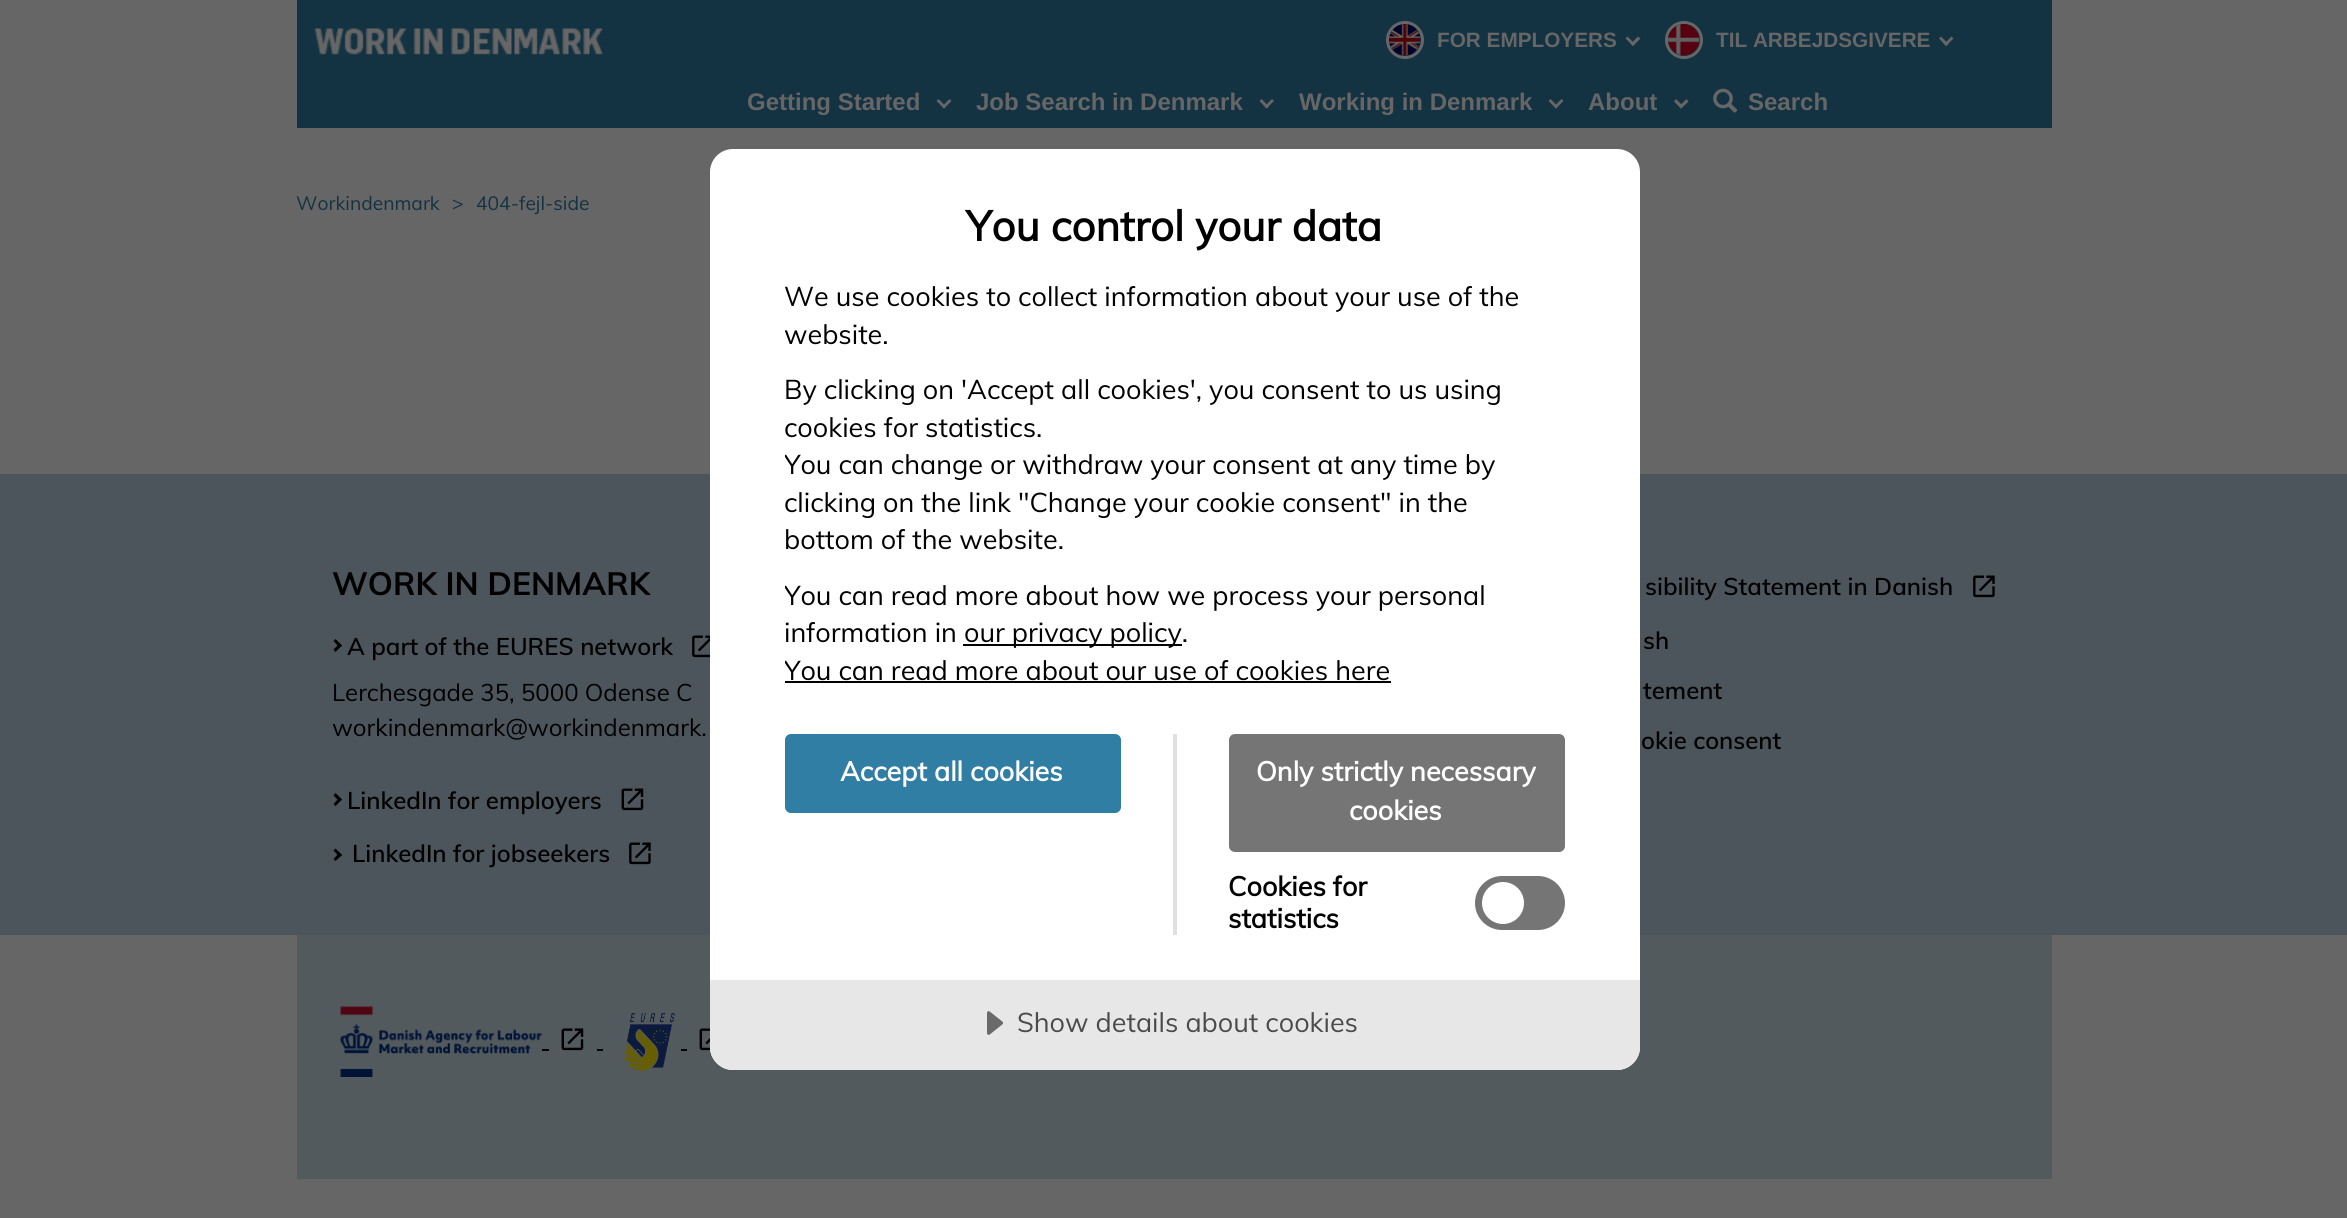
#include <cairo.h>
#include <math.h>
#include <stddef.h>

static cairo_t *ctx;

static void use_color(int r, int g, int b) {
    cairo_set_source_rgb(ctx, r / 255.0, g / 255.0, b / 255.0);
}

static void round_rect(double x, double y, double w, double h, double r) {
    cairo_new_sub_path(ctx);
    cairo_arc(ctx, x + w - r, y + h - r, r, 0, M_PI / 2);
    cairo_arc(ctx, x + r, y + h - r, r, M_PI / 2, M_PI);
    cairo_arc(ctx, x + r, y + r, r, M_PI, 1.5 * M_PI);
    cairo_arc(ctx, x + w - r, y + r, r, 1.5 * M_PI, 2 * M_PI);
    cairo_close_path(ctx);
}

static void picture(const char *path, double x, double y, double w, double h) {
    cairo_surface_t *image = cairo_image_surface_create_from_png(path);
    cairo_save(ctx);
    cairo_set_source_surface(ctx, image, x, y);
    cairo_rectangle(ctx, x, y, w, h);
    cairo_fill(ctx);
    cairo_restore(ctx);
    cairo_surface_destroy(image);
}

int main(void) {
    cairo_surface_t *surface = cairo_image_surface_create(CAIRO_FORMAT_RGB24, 2347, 1218);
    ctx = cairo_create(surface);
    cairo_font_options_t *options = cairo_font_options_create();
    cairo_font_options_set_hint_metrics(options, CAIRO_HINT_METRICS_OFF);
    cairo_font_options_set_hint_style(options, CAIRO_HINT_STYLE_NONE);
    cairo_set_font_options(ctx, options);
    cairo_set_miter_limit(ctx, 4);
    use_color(102, 102, 102);
    cairo_paint(ctx);
    use_color(19, 50, 66);
    cairo_rectangle(ctx, 297, 0, 1755, 128);
    cairo_fill(ctx);
    picture("img1.png", 314, 28, 290, 27);
    cairo_arc(ctx, 1405, 40, 17.5, 0, 2 * M_PI);
    use_color(102, 102, 102);
    cairo_set_line_width(ctx, 3);
    cairo_stroke(ctx);
    picture("img2.png", 1389, 24, 32, 32);
    cairo_select_font_face(ctx, "Liberation Sans", CAIRO_FONT_SLANT_NORMAL, CAIRO_FONT_WEIGHT_BOLD);
    cairo_set_font_size(ctx, 20.75);
    cairo_move_to(ctx, 1437, 47);
    cairo_show_text(ctx, "FOR EMPLOYERS");
    cairo_new_path(ctx);
    cairo_move_to(ctx, 1638, 36.5);
    cairo_line_to(ctx, 1640.5, 38.5);
    cairo_line_to(ctx, 1633, 46);
    cairo_line_to(ctx, 1630.5, 44);
    cairo_close_path(ctx);
    cairo_fill(ctx);
    cairo_new_path(ctx);
    cairo_move_to(ctx, 1627.5, 36.5);
    cairo_line_to(ctx, 1635, 44);
    cairo_line_to(ctx, 1633, 46);
    cairo_line_to(ctx, 1625.5, 38.5);
    cairo_close_path(ctx);
    cairo_fill(ctx);
    cairo_arc(ctx, 1684, 40, 17.5, 0, 2 * M_PI);
    cairo_stroke(ctx);
    picture("img3.png", 1668, 24, 32, 32);
    cairo_move_to(ctx, 1716, 47);
    cairo_show_text(ctx, "TIL ARBEJDSGIVERE");
    cairo_new_path(ctx);
    cairo_move_to(ctx, 1951.5, 36.5);
    cairo_line_to(ctx, 1953.5, 38.5);
    cairo_line_to(ctx, 1946, 46);
    cairo_line_to(ctx, 1944, 44);
    cairo_close_path(ctx);
    cairo_fill(ctx);
    cairo_new_path(ctx);
    cairo_move_to(ctx, 1941, 36.5);
    cairo_line_to(ctx, 1948.5, 44);
    cairo_line_to(ctx, 1946, 46);
    cairo_line_to(ctx, 1939, 38.5);
    cairo_close_path(ctx);
    cairo_fill(ctx);
    cairo_set_font_size(ctx, 24);
    cairo_move_to(ctx, 747, 110);
    cairo_show_text(ctx, "Getting Started");
    cairo_new_path(ctx);
    cairo_move_to(ctx, 949.5, 99);
    cairo_line_to(ctx, 951.5, 101);
    cairo_line_to(ctx, 944, 108.5);
    cairo_line_to(ctx, 942, 106.5);
    cairo_close_path(ctx);
    cairo_fill(ctx);
    cairo_new_path(ctx);
    cairo_move_to(ctx, 938.5, 99);
    cairo_line_to(ctx, 946, 106.5);
    cairo_line_to(ctx, 944, 108.5);
    cairo_line_to(ctx, 936.5, 101);
    cairo_close_path(ctx);
    cairo_fill(ctx);
    cairo_move_to(ctx, 976, 110);
    cairo_show_text(ctx, "Job Search in Denmark");
    cairo_new_path(ctx);
    cairo_move_to(ctx, 1272, 99);
    cairo_line_to(ctx, 1274, 101);
    cairo_line_to(ctx, 1266.5, 108.5);
    cairo_line_to(ctx, 1264.5, 106.5);
    cairo_close_path(ctx);
    cairo_fill(ctx);
    cairo_new_path(ctx);
    cairo_move_to(ctx, 1261.5, 99);
    cairo_line_to(ctx, 1269, 106.5);
    cairo_line_to(ctx, 1266.5, 108.5);
    cairo_line_to(ctx, 1259.5, 101);
    cairo_close_path(ctx);
    cairo_fill(ctx);
    cairo_move_to(ctx, 1299, 110);
    cairo_show_text(ctx, "Working in Denmark");
    cairo_new_path(ctx);
    cairo_move_to(ctx, 1561.5, 99);
    cairo_line_to(ctx, 1563.5, 101);
    cairo_line_to(ctx, 1556, 108.5);
    cairo_line_to(ctx, 1554, 106.5);
    cairo_close_path(ctx);
    cairo_fill(ctx);
    cairo_new_path(ctx);
    cairo_move_to(ctx, 1550.5, 99);
    cairo_line_to(ctx, 1558, 106.5);
    cairo_line_to(ctx, 1556, 108.5);
    cairo_line_to(ctx, 1548.5, 101);
    cairo_close_path(ctx);
    cairo_fill(ctx);
    cairo_move_to(ctx, 1588, 110);
    cairo_show_text(ctx, "About");
    cairo_new_path(ctx);
    cairo_move_to(ctx, 1686.5, 99);
    cairo_line_to(ctx, 1688.5, 101.5);
    cairo_line_to(ctx, 1681, 108.5);
    cairo_line_to(ctx, 1679, 106.5);
    cairo_close_path(ctx);
    cairo_fill(ctx);
    cairo_new_path(ctx);
    cairo_move_to(ctx, 1676, 99);
    cairo_line_to(ctx, 1683.5, 106.5);
    cairo_line_to(ctx, 1681, 108.5);
    cairo_line_to(ctx, 1674, 101.5);
    cairo_close_path(ctx);
    cairo_fill(ctx);
    picture("img4.png", 1713, 88, 25, 25);
    cairo_move_to(ctx, 1748, 110);
    cairo_show_text(ctx, "Search");
    cairo_select_font_face(ctx, "Muli", CAIRO_FONT_SLANT_NORMAL, CAIRO_FONT_WEIGHT_NORMAL);
    cairo_set_font_size(ctx, 19.25);
    use_color(19, 50, 66);
    cairo_move_to(ctx, 296, 210);
    cairo_show_text(ctx, "Workindenmark");
    cairo_move_to(ctx, 452, 210);
    cairo_show_text(ctx, ">");
    cairo_move_to(ctx, 476, 210);
    cairo_show_text(ctx, "404-fejl-side");
    use_color(76, 85, 91);
    cairo_rectangle(ctx, 0, 474, 2347, 461);
    cairo_fill(ctx);
    use_color(83, 90, 94);
    cairo_rectangle(ctx, 297, 935, 1755, 244);
    cairo_fill(ctx);
    picture("img12.png", 699, 1028, 12, 23);
    use_color(255, 255, 255);
    round_rect(710, 149, 930, 921, 23);
    cairo_fill(ctx);
    cairo_select_font_face(ctx, "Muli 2", CAIRO_FONT_SLANT_NORMAL, CAIRO_FONT_WEIGHT_BOLD);
    cairo_set_font_size(ctx, 42);
    use_color(0, 0, 0);
    cairo_move_to(ctx, 966, 241);
    cairo_show_text(ctx, "You control your data");
    cairo_select_font_face(ctx, "Muli", CAIRO_FONT_SLANT_NORMAL, CAIRO_FONT_WEIGHT_NORMAL);
    cairo_set_font_size(ctx, 27);
    cairo_move_to(ctx, 784, 306);
    cairo_show_text(ctx, "We use cookies to collect information about your use of the");
    cairo_move_to(ctx, 784, 344);
    cairo_show_text(ctx, "website.");
    cairo_move_to(ctx, 784, 399);
    cairo_show_text(ctx, "By clicking on 'Accept all cookies', you consent to us using");
    cairo_move_to(ctx, 784, 437);
    cairo_show_text(ctx, "cookies for statistics.");
    cairo_save(ctx);
    cairo_rectangle(ctx, 785, 353, 780, 205);
    cairo_clip(ctx);
    cairo_move_to(ctx, 784, 474);
    cairo_show_text(ctx, "You can change or withdraw your consent at any time by");
    cairo_restore(ctx);
    cairo_move_to(ctx, 784, 512);
    cairo_show_text(ctx, "clicking on the link \"Change your cookie consent\" in the");
    cairo_move_to(ctx, 784, 549);
    cairo_show_text(ctx, "bottom of the website.");
    cairo_save(ctx);
    cairo_rectangle(ctx, 785, 558, 780, 131);
    cairo_clip(ctx);
    cairo_move_to(ctx, 784, 605);
    cairo_show_text(ctx, "You can read more about how we process your personal");
    cairo_restore(ctx);
    cairo_move_to(ctx, 784, 642);
    cairo_show_text(ctx, "information in");
    cairo_rectangle(ctx, 963, 644, 219, 2);
    cairo_fill(ctx);
    cairo_move_to(ctx, 964, 642);
    cairo_show_text(ctx, "our privacy policy.");
    cairo_save(ctx);
    cairo_rectangle(ctx, 785, 558, 780, 131);
    cairo_clip(ctx);
    cairo_move_to(ctx, 784, 680);
    cairo_show_text(ctx, "You can read more about our use of cookies here");
    cairo_restore(ctx);
    cairo_rectangle(ctx, 785, 681, 606, 2);
    cairo_fill(ctx);
    use_color(224, 224, 224);
    cairo_rectangle(ctx, 1173, 734, 4, 201);
    cairo_fill(ctx);
    use_color(48, 126, 164);
    round_rect(785, 734, 336, 79, 6);
    cairo_fill(ctx);
    cairo_select_font_face(ctx, "Muli 2", CAIRO_FONT_SLANT_NORMAL, CAIRO_FONT_WEIGHT_BOLD);
    use_color(255, 255, 255);
    cairo_move_to(ctx, 840, 781);
    cairo_show_text(ctx, "Accept all cookies");
    use_color(117, 117, 117);
    round_rect(1229, 734, 336, 118, 6);
    cairo_fill(ctx);
    use_color(255, 255, 255);
    cairo_move_to(ctx, 1256, 781);
    cairo_show_text(ctx, "Only strictly necessary");
    cairo_move_to(ctx, 1349, 820);
    cairo_show_text(ctx, "cookies");
    use_color(0, 0, 0);
    cairo_move_to(ctx, 1228, 896);
    cairo_show_text(ctx, "Cookies for");
    cairo_move_to(ctx, 1228, 928);
    cairo_show_text(ctx, "statistics");
    use_color(117, 117, 117);
    round_rect(1475, 876, 90, 54, 27);
    cairo_fill(ctx);
    use_color(255, 255, 255);
    cairo_arc(ctx, 1503, 903, 21, 0, 2 * M_PI);
    cairo_fill(ctx);
    use_color(231, 231, 231);
    cairo_new_path(ctx);
    cairo_move_to(ctx, 710, 980);
    cairo_line_to(ctx, 1640, 980);
    cairo_line_to(ctx, 1640, 1047);
    cairo_curve_to(ctx, 1640, 1059.5, 1629.5, 1070, 1617, 1070);
    cairo_line_to(ctx, 733, 1070);
    cairo_curve_to(ctx, 720.5, 1070, 710, 1059.5, 710, 1047);
    cairo_close_path(ctx);
    cairo_fill(ctx);
    picture("img5.png", 987, 1011, 16, 24);
    cairo_select_font_face(ctx, "Muli", CAIRO_FONT_SLANT_NORMAL, CAIRO_FONT_WEIGHT_NORMAL);
    use_color(75, 75, 75);
    cairo_move_to(ctx, 1017, 1032);
    cairo_show_text(ctx, "Show details about cookies");
    cairo_select_font_face(ctx, "Muli", CAIRO_FONT_SLANT_NORMAL, CAIRO_FONT_WEIGHT_BOLD);
    cairo_set_font_size(ctx, 32);
    use_color(0, 0, 0);
    cairo_move_to(ctx, 332, 595);
    cairo_show_text(ctx, "WORK IN DENMARK");
    cairo_new_path(ctx);
    cairo_move_to(ctx, 335.5, 639);
    cairo_line_to(ctx, 342, 645.5);
    cairo_line_to(ctx, 339.5, 647.5);
    cairo_line_to(ctx, 333.5, 641);
    cairo_close_path(ctx);
    cairo_fill(ctx);
    cairo_new_path(ctx);
    cairo_move_to(ctx, 339.5, 643.5);
    cairo_line_to(ctx, 342, 645.5);
    cairo_line_to(ctx, 335.5, 652);
    cairo_line_to(ctx, 333.5, 649.5);
    cairo_close_path(ctx);
    cairo_fill(ctx);
    cairo_select_font_face(ctx, "Muli SemiBold", CAIRO_FONT_SLANT_NORMAL, CAIRO_FONT_WEIGHT_NORMAL);
    cairo_set_font_size(ctx, 24);
    cairo_move_to(ctx, 347, 655);
    cairo_show_text(ctx, "A part of the EURES network");
    picture("img6.png", 692, 635, 18, 23);
    cairo_select_font_face(ctx, "Muli", CAIRO_FONT_SLANT_NORMAL, CAIRO_FONT_WEIGHT_NORMAL);
    cairo_move_to(ctx, 332, 701);
    cairo_show_text(ctx, "Lerchesgade 35, 5000 Odense C");
    cairo_move_to(ctx, 332, 736);
    cairo_show_text(ctx, "workindenmark@workindenmark.");
    cairo_new_path(ctx);
    cairo_move_to(ctx, 335.5, 793);
    cairo_line_to(ctx, 342, 799.5);
    cairo_line_to(ctx, 339.5, 801.5);
    cairo_line_to(ctx, 333.5, 795.5);
    cairo_close_path(ctx);
    cairo_fill(ctx);
    cairo_new_path(ctx);
    cairo_move_to(ctx, 339.5, 797.5);
    cairo_line_to(ctx, 342, 799.5);
    cairo_line_to(ctx, 335.5, 806);
    cairo_line_to(ctx, 333.5, 804);
    cairo_close_path(ctx);
    cairo_fill(ctx);
    cairo_select_font_face(ctx, "Muli SemiBold", CAIRO_FONT_SLANT_NORMAL, CAIRO_FONT_WEIGHT_NORMAL);
    cairo_move_to(ctx, 347, 809);
    cairo_show_text(ctx, "LinkedIn for employers");
    picture("img7.png", 621, 788, 23, 23);
    cairo_new_path(ctx);
    cairo_move_to(ctx, 335.5, 848.5);
    cairo_line_to(ctx, 342, 855);
    cairo_line_to(ctx, 339.5, 857);
    cairo_line_to(ctx, 333.5, 850.5);
    cairo_close_path(ctx);
    cairo_fill(ctx);
    cairo_new_path(ctx);
    cairo_move_to(ctx, 339.5, 852.5);
    cairo_line_to(ctx, 342, 855);
    cairo_line_to(ctx, 335.5, 861);
    cairo_line_to(ctx, 333.5, 859);
    cairo_close_path(ctx);
    cairo_fill(ctx);
    cairo_move_to(ctx, 352, 862);
    cairo_show_text(ctx, "LinkedIn for jobseekers");
    picture("img8.png", 629, 842, 22, 23);
    cairo_move_to(ctx, 1645, 595);
    cairo_show_text(ctx, "sibility Statement in Danish");
    picture("img8.png", 1973, 575, 22, 23);
    cairo_move_to(ctx, 1643, 649);
    cairo_show_text(ctx, "sh");
    cairo_move_to(ctx, 1643, 699);
    cairo_show_text(ctx, "tement");
    cairo_move_to(ctx, 1641, 749);
    cairo_show_text(ctx, "okie consent");
    picture("img9.png", 340, 1006, 202, 71);
    cairo_rectangle(ctx, 542, 1049, 7, 2);
    cairo_fill(ctx);
    picture("img10.png", 561, 1028, 23, 23);
    cairo_rectangle(ctx, 597, 1049, 6, 2);
    cairo_fill(ctx);
    picture("img11.png", 624, 1013, 51, 58);
    cairo_rectangle(ctx, 681, 1049, 6, 2);
    cairo_fill(ctx);
    cairo_surface_write_to_png(surface, "result.png");
    cairo_font_options_destroy(options);
    cairo_destroy(ctx);
    cairo_surface_destroy(surface);
    return 0;
}
